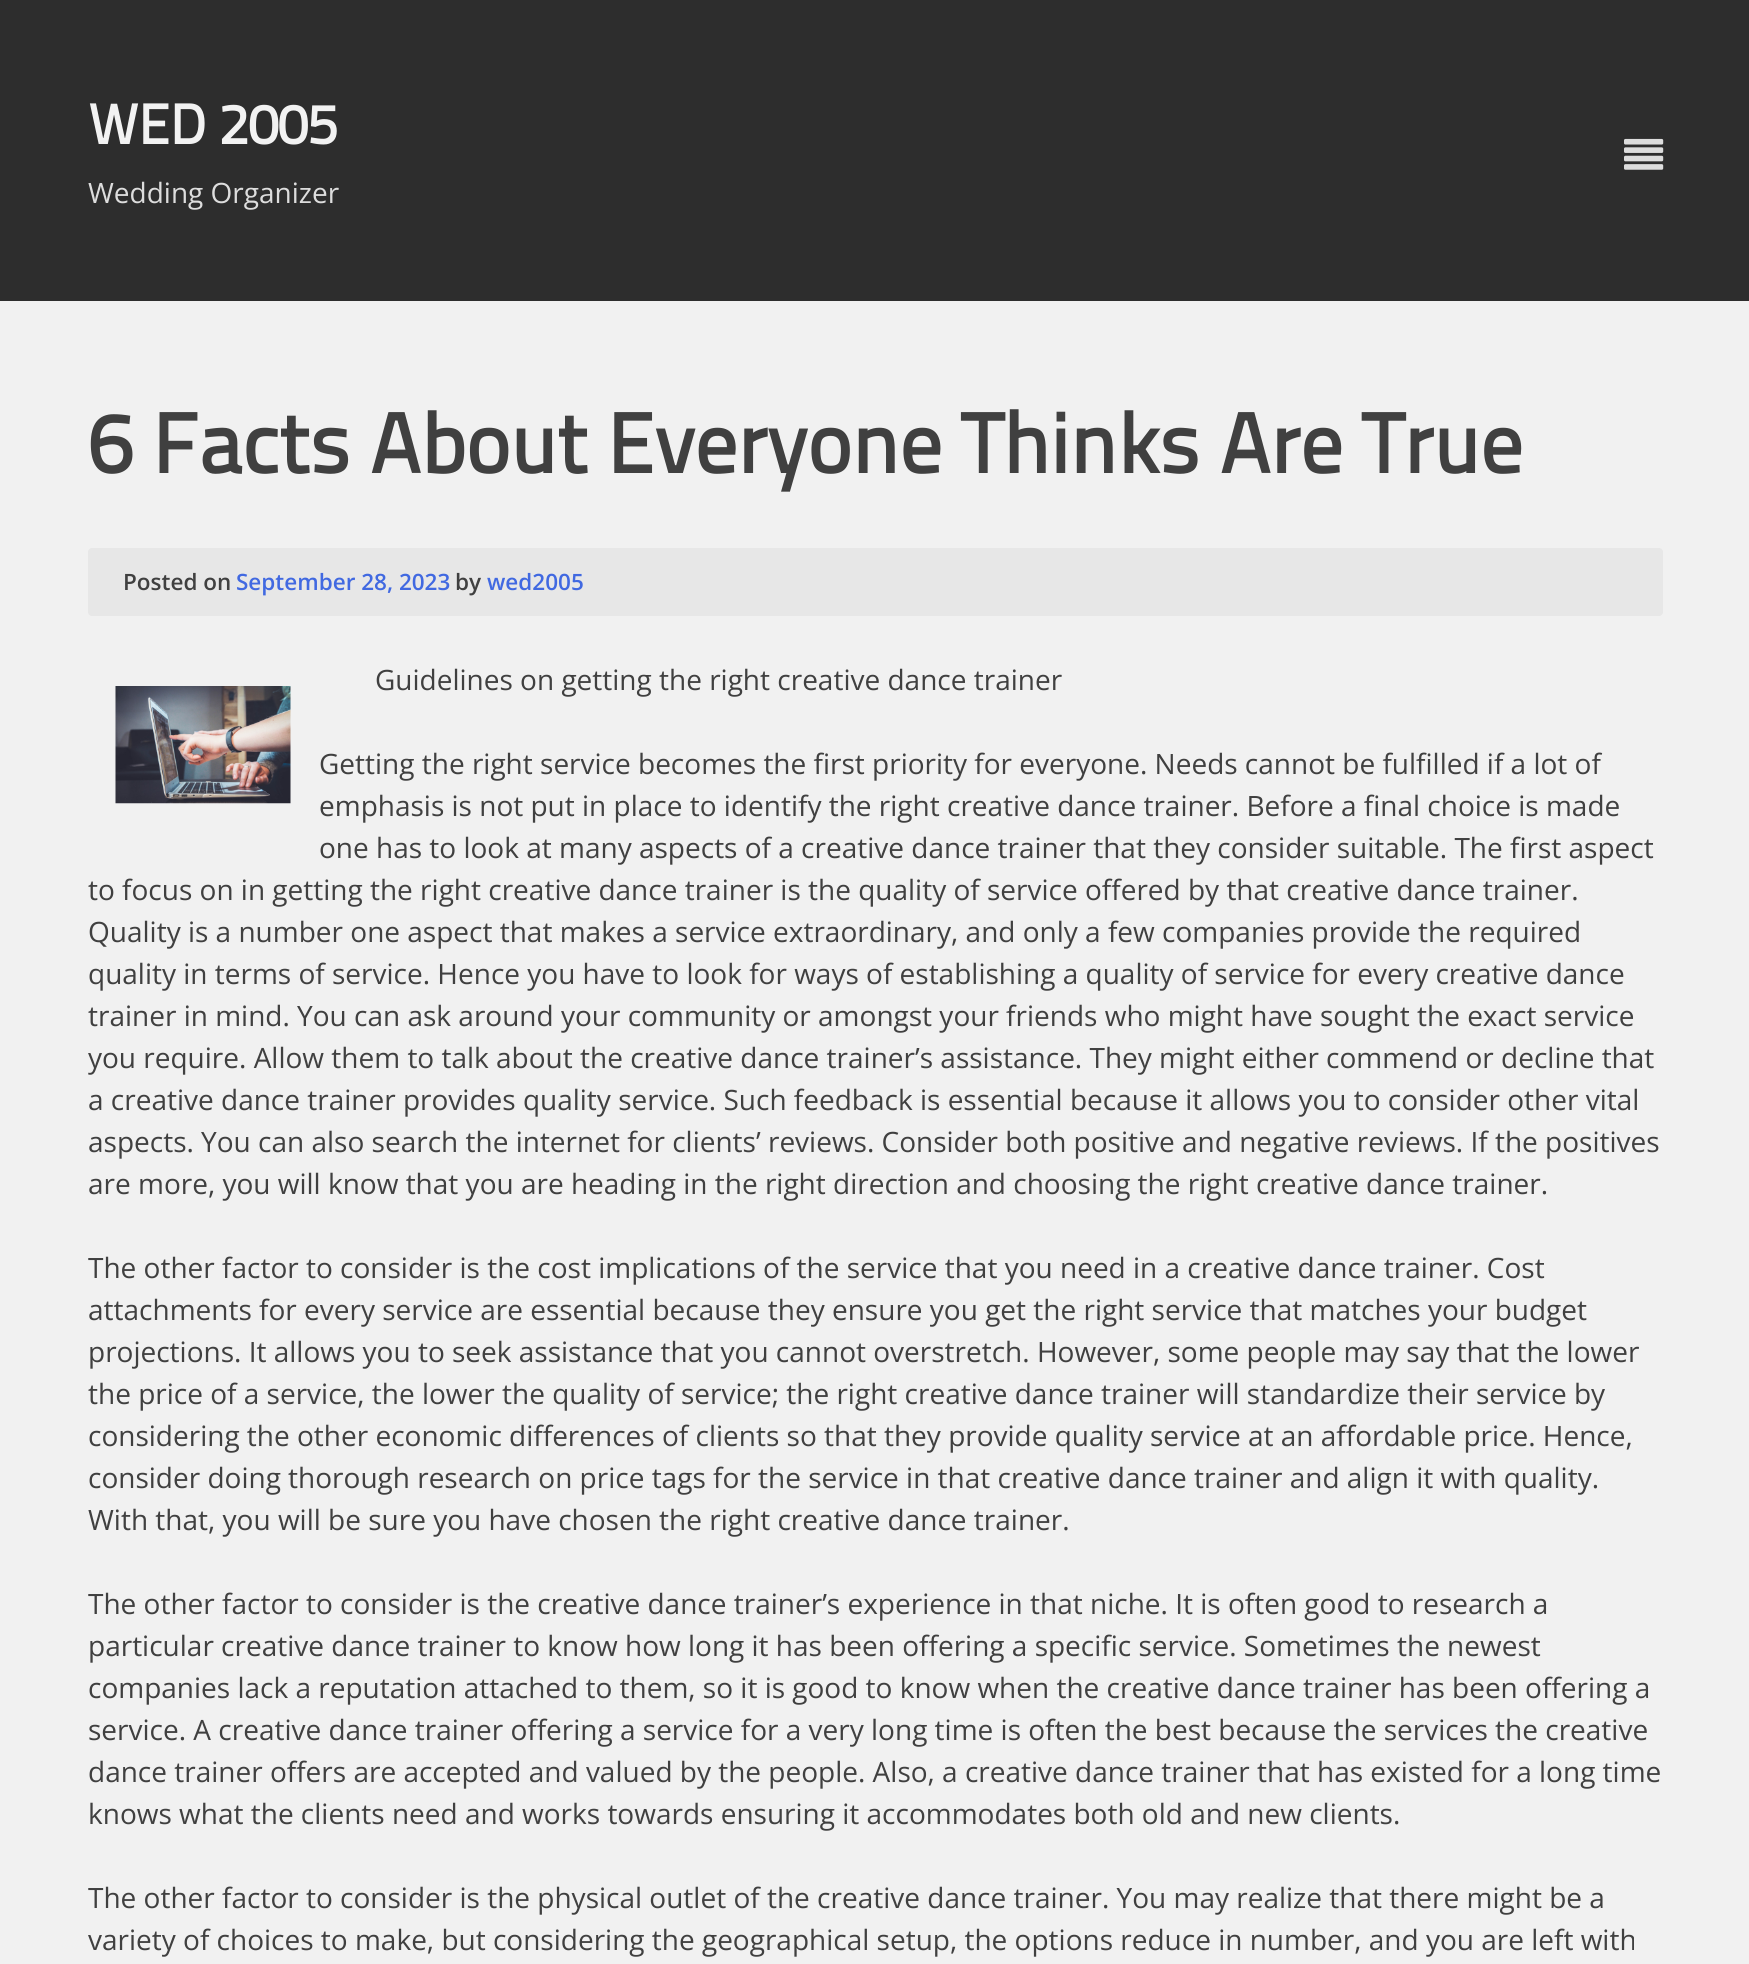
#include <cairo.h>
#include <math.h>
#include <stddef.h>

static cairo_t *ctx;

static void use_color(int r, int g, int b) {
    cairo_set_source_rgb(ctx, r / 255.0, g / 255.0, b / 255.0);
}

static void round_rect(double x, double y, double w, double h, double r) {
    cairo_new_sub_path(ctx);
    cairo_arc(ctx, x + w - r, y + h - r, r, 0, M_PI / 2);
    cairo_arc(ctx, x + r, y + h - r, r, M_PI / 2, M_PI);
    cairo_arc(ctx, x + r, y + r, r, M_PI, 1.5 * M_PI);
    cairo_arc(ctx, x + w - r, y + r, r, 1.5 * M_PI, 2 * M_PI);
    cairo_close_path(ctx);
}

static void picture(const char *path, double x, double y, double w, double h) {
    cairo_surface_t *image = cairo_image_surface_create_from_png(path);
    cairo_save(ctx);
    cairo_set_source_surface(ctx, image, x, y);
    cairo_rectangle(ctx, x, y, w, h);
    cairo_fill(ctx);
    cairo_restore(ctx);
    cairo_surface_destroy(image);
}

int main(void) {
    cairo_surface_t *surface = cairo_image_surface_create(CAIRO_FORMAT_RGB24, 1749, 1964);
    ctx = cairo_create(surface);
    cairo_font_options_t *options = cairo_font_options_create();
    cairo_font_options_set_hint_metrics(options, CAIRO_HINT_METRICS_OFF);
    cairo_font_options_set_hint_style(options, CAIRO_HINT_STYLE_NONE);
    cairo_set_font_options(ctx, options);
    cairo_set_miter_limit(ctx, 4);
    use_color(241, 241, 241);
    cairo_paint(ctx);
    use_color(45, 45, 45);
    cairo_rectangle(ctx, 0, 0, 1749, 301);
    cairo_fill(ctx);
    cairo_select_font_face(ctx, "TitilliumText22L", CAIRO_FONT_SLANT_NORMAL, CAIRO_FONT_WEIGHT_BOLD);
    cairo_set_font_size(ctx, 56);
    use_color(242, 242, 242);
    cairo_move_to(ctx, 88, 144);
    cairo_show_text(ctx, "WED 2005");
    picture("img1.png", 1624, 138, 40, 32);
    cairo_select_font_face(ctx, "Open Sans", CAIRO_FONT_SLANT_NORMAL, CAIRO_FONT_WEIGHT_NORMAL);
    cairo_set_font_size(ctx, 28);
    use_color(221, 221, 221);
    cairo_move_to(ctx, 88, 203);
    cairo_show_text(ctx, "Wedding Organizer");
    cairo_select_font_face(ctx, "TitilliumText22L", CAIRO_FONT_SLANT_NORMAL, CAIRO_FONT_WEIGHT_BOLD);
    cairo_set_font_size(ctx, 84);
    use_color(64, 64, 64);
    cairo_move_to(ctx, 88, 473);
    cairo_show_text(ctx, "6 Facts About Everyone Thinks Are True");
    use_color(231, 231, 231);
    round_rect(88, 548, 1575, 68, 4);
    cairo_fill(ctx);
    cairo_select_font_face(ctx, "Open Sans SemiBold", CAIRO_FONT_SLANT_NORMAL, CAIRO_FONT_WEIGHT_NORMAL);
    cairo_set_font_size(ctx, 22.5);
    use_color(64, 64, 64);
    cairo_move_to(ctx, 123, 590);
    cairo_show_text(ctx, "Posted on");
    use_color(65, 105, 225);
    cairo_move_to(ctx, 236, 590);
    cairo_show_text(ctx, "September 28, 2023");
    use_color(64, 64, 64);
    cairo_move_to(ctx, 455, 590);
    cairo_show_text(ctx, "by");
    use_color(65, 105, 225);
    cairo_move_to(ctx, 487, 590);
    cairo_show_text(ctx, "wed2005");
    cairo_select_font_face(ctx, "Open Sans", CAIRO_FONT_SLANT_NORMAL, CAIRO_FONT_WEIGHT_NORMAL);
    cairo_set_font_size(ctx, 28);
    use_color(64, 64, 64);
    cairo_move_to(ctx, 375, 690);
    cairo_show_text(ctx, "Guidelines on getting the right creative dance trainer");
    picture("img2.png", 115, 686, 176, 118);
    cairo_move_to(ctx, 319, 774);
    cairo_show_text(ctx, "Getting the right service becomes the first priority for everyone. Needs cannot be fulfilled if a lot of");
    cairo_move_to(ctx, 319, 816);
    cairo_show_text(ctx, "emphasis is not put in place to identify the right creative dance trainer. Before a final choice is made");
    cairo_move_to(ctx, 319, 858);
    cairo_show_text(ctx, "one has to look at many aspects of a creative dance trainer that they consider suitable. The first aspect");
    cairo_move_to(ctx, 88, 900);
    cairo_show_text(ctx, "to focus on in getting the right creative dance trainer is the quality of service offered by that creative dance trainer.");
    cairo_move_to(ctx, 88, 942);
    cairo_show_text(ctx, "Quality is a number one aspect that makes a service extraordinary, and only a few companies provide the required");
    cairo_move_to(ctx, 88, 984);
    cairo_show_text(ctx, "quality in terms of service. Hence you have to look for ways of establishing a quality of service for every creative dance");
    cairo_move_to(ctx, 88, 1026);
    cairo_show_text(ctx, "trainer in mind. You can ask around your community or amongst your friends who might have sought the exact service");
    cairo_move_to(ctx, 88, 1068);
    cairo_show_text(ctx, "you require. Allow them to talk about the creative dance trainer’s assistance. They might either commend or decline that");
    cairo_move_to(ctx, 88, 1110);
    cairo_show_text(ctx, "a creative dance trainer provides quality service. Such feedback is essential because it allows you to consider other vital");
    cairo_move_to(ctx, 88, 1152);
    cairo_show_text(ctx, "aspects. You can also search the internet for clients’ reviews. Consider both positive and negative reviews. If the positives");
    cairo_move_to(ctx, 88, 1194);
    cairo_show_text(ctx, "are more, you will know that you are heading in the right direction and choosing the right creative dance trainer.");
    cairo_move_to(ctx, 88, 1278);
    cairo_show_text(ctx, "The other factor to consider is the cost implications of the service that you need in a creative dance trainer. Cost");
    cairo_move_to(ctx, 88, 1320);
    cairo_show_text(ctx, "attachments for every service are essential because they ensure you get the right service that matches your budget");
    cairo_move_to(ctx, 88, 1362);
    cairo_show_text(ctx, "projections. It allows you to seek assistance that you cannot overstretch. However, some people may say that the lower");
    cairo_move_to(ctx, 88, 1404);
    cairo_show_text(ctx, "the price of a service, the lower the quality of service; the right creative dance trainer will standardize their service by");
    cairo_move_to(ctx, 88, 1446);
    cairo_show_text(ctx, "considering the other economic differences of clients so that they provide quality service at an affordable price. Hence,");
    cairo_move_to(ctx, 88, 1488);
    cairo_show_text(ctx, "consider doing thorough research on price tags for the service in that creative dance trainer and align it with quality.");
    cairo_move_to(ctx, 88, 1530);
    cairo_show_text(ctx, "With that, you will be sure you have chosen the right creative dance trainer.");
    cairo_move_to(ctx, 88, 1614);
    cairo_show_text(ctx, "The other factor to consider is the creative dance trainer’s experience in that niche. It is often good to research a");
    cairo_move_to(ctx, 88, 1656);
    cairo_show_text(ctx, "particular creative dance trainer to know how long it has been offering a specific service. Sometimes the newest");
    cairo_move_to(ctx, 88, 1698);
    cairo_show_text(ctx, "companies lack a reputation attached to them, so it is good to know when the creative dance trainer has been offering a");
    cairo_move_to(ctx, 88, 1740);
    cairo_show_text(ctx, "service. A creative dance trainer offering a service for a very long time is often the best because the services the creative");
    cairo_move_to(ctx, 88, 1782);
    cairo_show_text(ctx, "dance trainer offers are accepted and valued by the people. Also, a creative dance trainer that has existed for a long time");
    cairo_move_to(ctx, 88, 1824);
    cairo_show_text(ctx, "knows what the clients need and works towards ensuring it accommodates both old and new clients.");
    cairo_move_to(ctx, 88, 1908);
    cairo_show_text(ctx, "The other factor to consider is the physical outlet of the creative dance trainer. You may realize that there might be a");
    cairo_move_to(ctx, 88, 1950);
    cairo_show_text(ctx, "variety of choices to make, but considering the geographical setup, the options reduce in number, and you are left with");
    cairo_surface_write_to_png(surface, "result.png");
    cairo_font_options_destroy(options);
    cairo_destroy(ctx);
    cairo_surface_destroy(surface);
    return 0;
}
